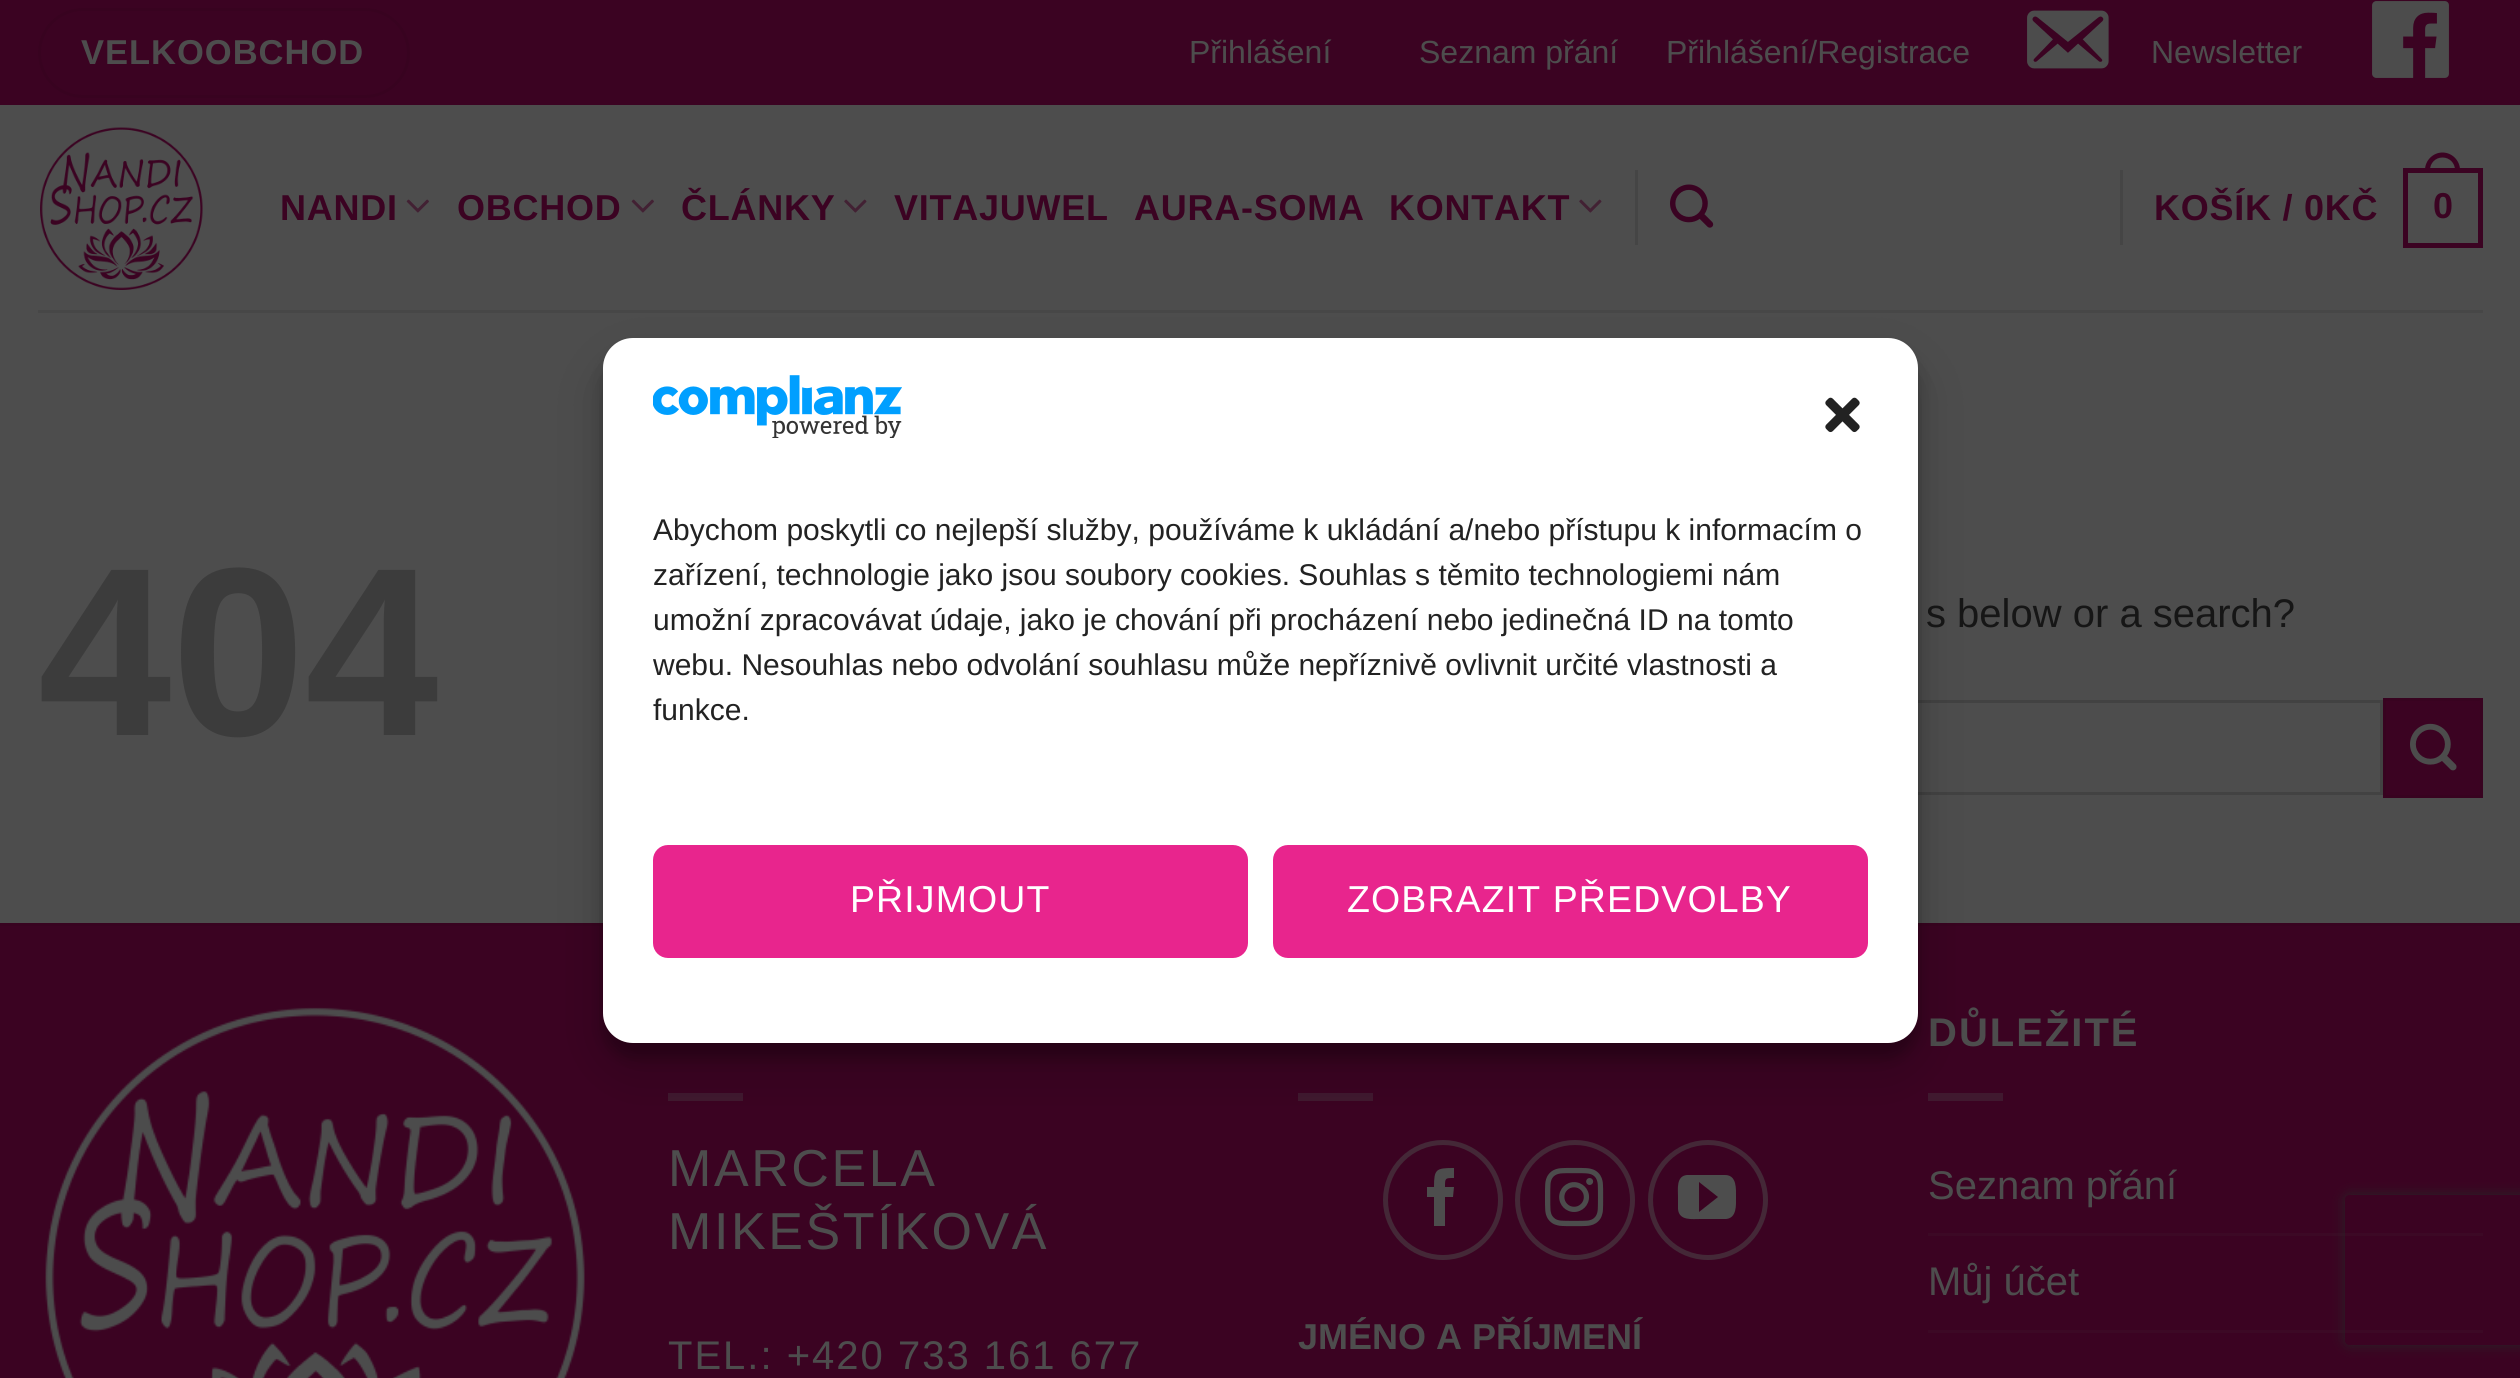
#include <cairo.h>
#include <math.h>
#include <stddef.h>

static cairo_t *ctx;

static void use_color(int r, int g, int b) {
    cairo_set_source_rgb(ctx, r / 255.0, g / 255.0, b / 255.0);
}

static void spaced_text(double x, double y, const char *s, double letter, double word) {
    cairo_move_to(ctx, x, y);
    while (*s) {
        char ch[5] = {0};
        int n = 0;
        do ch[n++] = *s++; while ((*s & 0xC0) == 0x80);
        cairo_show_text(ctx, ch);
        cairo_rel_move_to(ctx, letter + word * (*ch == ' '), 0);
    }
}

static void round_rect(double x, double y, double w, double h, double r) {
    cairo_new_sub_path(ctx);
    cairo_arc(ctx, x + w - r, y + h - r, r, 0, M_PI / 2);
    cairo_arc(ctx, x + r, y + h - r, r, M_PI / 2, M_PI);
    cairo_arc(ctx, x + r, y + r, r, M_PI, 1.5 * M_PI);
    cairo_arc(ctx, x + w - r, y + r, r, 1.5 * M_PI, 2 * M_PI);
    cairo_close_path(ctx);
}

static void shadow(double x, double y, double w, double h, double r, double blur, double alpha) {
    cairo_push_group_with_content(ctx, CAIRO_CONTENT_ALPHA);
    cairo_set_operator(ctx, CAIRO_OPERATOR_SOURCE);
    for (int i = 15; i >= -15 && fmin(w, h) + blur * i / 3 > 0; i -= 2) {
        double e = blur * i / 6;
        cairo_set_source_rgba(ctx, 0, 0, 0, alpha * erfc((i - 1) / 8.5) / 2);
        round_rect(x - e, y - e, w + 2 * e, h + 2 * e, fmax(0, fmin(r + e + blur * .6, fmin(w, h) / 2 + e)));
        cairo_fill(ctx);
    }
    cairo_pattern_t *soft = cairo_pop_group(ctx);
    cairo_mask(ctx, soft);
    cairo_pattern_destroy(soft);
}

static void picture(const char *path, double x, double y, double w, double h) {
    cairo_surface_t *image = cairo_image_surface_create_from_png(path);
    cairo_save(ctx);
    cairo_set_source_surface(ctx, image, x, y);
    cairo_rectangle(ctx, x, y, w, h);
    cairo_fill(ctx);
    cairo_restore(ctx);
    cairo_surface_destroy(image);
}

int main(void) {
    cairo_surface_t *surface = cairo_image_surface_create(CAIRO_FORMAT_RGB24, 2520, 1378);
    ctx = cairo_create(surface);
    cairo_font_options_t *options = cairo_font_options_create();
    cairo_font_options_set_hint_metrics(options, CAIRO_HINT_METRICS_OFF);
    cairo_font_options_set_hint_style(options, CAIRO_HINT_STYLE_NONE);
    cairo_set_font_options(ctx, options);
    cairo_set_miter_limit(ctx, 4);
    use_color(77, 77, 77);
    cairo_paint(ctx);
    use_color(59, 3, 34);
    cairo_rectangle(ctx, 0, 0, 2520, 105);
    cairo_fill(ctx);
    round_rect(39.5, 9.5, 369, 87, 43.5);
    use_color(56, 3, 32);
    cairo_set_line_width(ctx, 3);
    cairo_stroke(ctx);
    cairo_select_font_face(ctx, "Liberation Sans", CAIRO_FONT_SLANT_NORMAL, CAIRO_FONT_WEIGHT_BOLD);
    cairo_set_font_size(ctx, 34.5);
    use_color(77, 77, 77);
    spaced_text(81, 64, "VELKOOBCHOD", 1, 0);
    cairo_select_font_face(ctx, "Liberation Sans", CAIRO_FONT_SLANT_NORMAL, CAIRO_FONT_WEIGHT_NORMAL);
    cairo_set_font_size(ctx, 32);
    cairo_move_to(ctx, 1189, 63);
    cairo_show_text(ctx, "Přihlášení");
    cairo_move_to(ctx, 1419, 63);
    cairo_show_text(ctx, "Seznam přání");
    cairo_move_to(ctx, 1666, 63);
    cairo_show_text(ctx, "Přihlášení/Registrace");
    picture("img1.png", 2027, 10, 82, 59);
    cairo_move_to(ctx, 2151, 63);
    cairo_show_text(ctx, "Newsletter");
    picture("img2.png", 2372, 1, 77, 77);
    picture("img3.png", 40, 127, 163, 163);
    cairo_select_font_face(ctx, "Liberation Sans", CAIRO_FONT_SLANT_NORMAL, CAIRO_FONT_WEIGHT_BOLD);
    cairo_set_font_size(ctx, 36);
    use_color(59, 3, 34);
    spaced_text(280, 220, "NANDI", 0.75, 0);
    picture("img4.png", 406, 199, 23, 14);
    spaced_text(457, 220, "OBCHOD", 0.75, 0);
    picture("img4.png", 631, 199, 23, 14);
    spaced_text(681, 220, "ČLÁNKY", 0.75, 0);
    picture("img5.png", 844, 199, 23, 14);
    spaced_text(894, 220, "VITAJUWEL", 0.75, 0);
    spaced_text(1134, 220, "AURA-SOMA", 0.75, 0);
    spaced_text(1389, 220, "KONTAKT", 0.75, 0);
    picture("img5.png", 1579, 199, 23, 14);
    use_color(69, 69, 69);
    cairo_rectangle(ctx, 1635, 170, 3, 75);
    cairo_fill(ctx);
    picture("img6.png", 1670, 184, 44, 44);
    cairo_rectangle(ctx, 2120, 170, 3, 75);
    cairo_fill(ctx);
    use_color(59, 3, 34);
    spaced_text(2154, 220, "KOŠÍK / 0KČ", 0.75, 0);
    cairo_rectangle(ctx, 2405.5, 170.5, 75, 75);
    cairo_set_line_width(ctx, 5);
    cairo_stroke(ctx);
    cairo_set_fill_rule(ctx, CAIRO_FILL_RULE_EVEN_ODD);
    cairo_new_path(ctx);
    cairo_move_to(ctx, 2442.5, 152.5);
    cairo_curve_to(ctx, 2452, 152.5, 2460, 160.5, 2460, 170);
    cairo_line_to(ctx, 2460, 172.5);
    cairo_line_to(ctx, 2425, 172.5);
    cairo_line_to(ctx, 2425, 170);
    cairo_curve_to(ctx, 2425, 160.5, 2433, 152.5, 2442.5, 152.5);
    cairo_close_path(ctx);
    cairo_move_to(ctx, 2442.5, 157.5);
    cairo_curve_to(ctx, 2449.5, 157.5, 2455, 163, 2455, 170);
    cairo_line_to(ctx, 2455, 172.5);
    cairo_line_to(ctx, 2430, 172.5);
    cairo_line_to(ctx, 2430, 170);
    cairo_curve_to(ctx, 2430, 163, 2435.5, 157.5, 2442.5, 157.5);
    cairo_close_path(ctx);
    cairo_fill(ctx);
    spaced_text(2433, 218, "0", 0.75, 0);
    use_color(71, 71, 71);
    cairo_rectangle(ctx, 38, 310, 2445, 3);
    cairo_fill(ctx);
    cairo_set_font_size(ctx, 240);
    use_color(60, 60, 60);
    cairo_move_to(ctx, 38, 735);
    cairo_show_text(ctx, "404");
    cairo_select_font_face(ctx, "Liberation Sans", CAIRO_FONT_SLANT_NORMAL, CAIRO_FONT_WEIGHT_NORMAL);
    cairo_set_font_size(ctx, 40);
    use_color(22, 22, 22);
    cairo_move_to(ctx, 1926, 627);
    cairo_show_text(ctx, "s below or a search?");
    cairo_rectangle(ctx, 669.5, 701.5, 1712, 92);
    use_color(66, 66, 66);
    cairo_set_line_width(ctx, 3);
    cairo_stroke(ctx);
    use_color(59, 3, 34);
    cairo_rectangle(ctx, 2384.5, 699.5, 97, 97);
    cairo_fill_preserve(ctx);
    use_color(56, 3, 32);
    cairo_stroke(ctx);
    picture("img7.png", 2410, 723, 47, 48);
    use_color(59, 3, 34);
    cairo_rectangle(ctx, 0, 926, 2520, 452);
    cairo_fill(ctx);
    use_color(56, 3, 32);
    cairo_rectangle(ctx, 0, 923, 2520, 3);
    cairo_fill(ctx);
    picture("img8.png", 45, 1007, 540, 371);
    use_color(64, 25, 47);
    cairo_rectangle(ctx, 668, 1093, 75, 8);
    cairo_fill(ctx);
    cairo_set_font_size(ctx, 52);
    use_color(77, 77, 77);
    spaced_text(668, 1186, "MARCELA", 2.6, 0);
    spaced_text(668, 1249, "MIKEŠTÍKOVÁ", 2.6, 0);
    cairo_set_font_size(ctx, 40);
    spaced_text(668, 1369, "TEL.: +420 733 161 677", 2, 0);
    use_color(64, 25, 47);
    cairo_rectangle(ctx, 1298, 1093, 75, 8);
    cairo_fill(ctx);
    cairo_arc(ctx, 1443, 1200, 57.5, 0, 2 * M_PI);
    use_color(68, 40, 55);
    cairo_set_line_width(ctx, 5);
    cairo_stroke(ctx);
    use_color(77, 77, 77);
    cairo_set_fill_rule(ctx, CAIRO_FILL_RULE_WINDING);
    cairo_new_path(ctx);
    cairo_move_to(ctx, 1445, 1226);
    cairo_line_to(ctx, 1434, 1226);
    cairo_line_to(ctx, 1434, 1197);
    cairo_line_to(ctx, 1427, 1197);
    cairo_line_to(ctx, 1427, 1187);
    cairo_line_to(ctx, 1434, 1187);
    cairo_curve_to(ctx, 1434, 1169, 1436, 1168, 1454, 1168);
    cairo_line_to(ctx, 1454, 1178);
    cairo_curve_to(ctx, 1445, 1178, 1445, 1178, 1445, 1187);
    cairo_line_to(ctx, 1454, 1187);
    cairo_line_to(ctx, 1453, 1197);
    cairo_line_to(ctx, 1445, 1197);
    cairo_close_path(ctx);
    cairo_fill(ctx);
    cairo_arc(ctx, 1575, 1200, 57.5, 0, 2 * M_PI);
    use_color(68, 40, 55);
    cairo_stroke(ctx);
    picture("img9.png", 1545, 1167, 59, 60);
    cairo_arc(ctx, 1708, 1200, 57.5, 0, 2 * M_PI);
    cairo_stroke(ctx);
    use_color(77, 77, 77);
    cairo_new_path(ctx);
    cairo_move_to(ctx, 1725, 1175);
    cairo_line_to(ctx, 1687, 1175);
    cairo_curve_to(ctx, 1676, 1176, 1678, 1189, 1678, 1197);
    cairo_line_to(ctx, 1678, 1209);
    cairo_curve_to(ctx, 1679, 1221, 1692, 1219, 1701, 1219);
    cairo_line_to(ctx, 1726, 1219);
    cairo_curve_to(ctx, 1737, 1218, 1736, 1205, 1736, 1197);
    cairo_curve_to(ctx, 1736, 1189, 1737, 1175, 1725, 1175);
    cairo_close_path(ctx);
    cairo_move_to(ctx, 1699, 1212);
    cairo_line_to(ctx, 1699, 1182);
    cairo_line_to(ctx, 1718, 1197);
    cairo_close_path(ctx);
    cairo_fill(ctx);
    cairo_select_font_face(ctx, "Liberation Sans", CAIRO_FONT_SLANT_NORMAL, CAIRO_FONT_WEIGHT_BOLD);
    cairo_set_font_size(ctx, 36);
    cairo_move_to(ctx, 1298, 1349);
    cairo_show_text(ctx, "JMÉNO A PŘÍJMENÍ");
    cairo_set_font_size(ctx, 40);
    spaced_text(1928, 1046, "DŮLEŽITÉ", 2, 0);
    use_color(64, 25, 47);
    cairo_rectangle(ctx, 1928, 1093, 75, 8);
    cairo_fill(ctx);
    cairo_select_font_face(ctx, "Liberation Sans", CAIRO_FONT_SLANT_NORMAL, CAIRO_FONT_WEIGHT_NORMAL);
    use_color(77, 77, 77);
    cairo_move_to(ctx, 1928, 1199);
    cairo_show_text(ctx, "Seznam přání");
    use_color(60, 9, 37);
    cairo_rectangle(ctx, 1928, 1233, 555, 3);
    cairo_fill(ctx);
    use_color(77, 77, 77);
    cairo_move_to(ctx, 1928, 1295);
    cairo_show_text(ctx, "Můj účet");
    use_color(60, 9, 37);
    cairo_rectangle(ctx, 1928, 1330, 555, 3);
    cairo_fill(ctx);
    use_color(0, 0, 0);
    shadow(603, 353, 1315, 705, 30, 7.5, 0.23);
    shadow(603, 363, 1315, 705, 30, 25, 0.19);
    use_color(255, 255, 255);
    round_rect(603, 338, 1315, 705, 30);
    cairo_fill(ctx);
    picture("img10.png", 653, 375, 249, 63);
    picture("img11.png", 1825, 397, 35, 36);
    cairo_set_font_size(ctx, 30);
    use_color(34, 34, 34);
    cairo_move_to(ctx, 653, 540);
    cairo_show_text(ctx, "Abychom poskytli co nejlepší služby, používáme k ukládání a/nebo přístupu k informacím o");
    cairo_move_to(ctx, 653, 585);
    cairo_show_text(ctx, "zařízení, technologie jako jsou soubory cookies. Souhlas s těmito technologiemi nám");
    cairo_move_to(ctx, 653, 630);
    cairo_show_text(ctx, "umožní zpracovávat údaje, jako je chování při procházení nebo jedinečná ID na tomto");
    cairo_move_to(ctx, 653, 675);
    cairo_show_text(ctx, "webu. Nesouhlas nebo odvolání souhlasu může nepříznivě ovlivnit určité vlastnosti a");
    cairo_move_to(ctx, 653, 720);
    cairo_show_text(ctx, "funkce.");
    use_color(232, 37, 141);
    round_rect(654.5, 846.5, 592, 110, 13.5);
    cairo_fill_preserve(ctx);
    cairo_set_line_width(ctx, 3);
    cairo_stroke(ctx);
    cairo_set_font_size(ctx, 37.5);
    use_color(255, 255, 255);
    spaced_text(850, 912, "PŘIJMOUT", 1.1, 0);
    use_color(232, 37, 141);
    round_rect(1274.5, 846.5, 592, 110, 13.5);
    cairo_fill_preserve(ctx);
    cairo_stroke(ctx);
    use_color(255, 255, 255);
    spaced_text(1347, 912, "ZOBRAZIT PŘEDVOLBY", 1.1, 0);
    cairo_save(ctx);
    cairo_set_fill_rule(ctx, CAIRO_FILL_RULE_EVEN_ODD);
    cairo_new_path(ctx);
    cairo_move_to(ctx, 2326, 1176);
    cairo_line_to(ctx, 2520, 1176);
    cairo_line_to(ctx, 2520, 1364);
    cairo_line_to(ctx, 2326, 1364);
    cairo_close_path(ctx);
    cairo_move_to(ctx, 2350, 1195);
    cairo_line_to(ctx, 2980, 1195);
    cairo_curve_to(ctx, 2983, 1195, 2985, 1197, 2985, 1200);
    cairo_line_to(ctx, 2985, 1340);
    cairo_curve_to(ctx, 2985, 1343, 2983, 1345, 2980, 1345);
    cairo_line_to(ctx, 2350, 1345);
    cairo_curve_to(ctx, 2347, 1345, 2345, 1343, 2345, 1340);
    cairo_line_to(ctx, 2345, 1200);
    cairo_curve_to(ctx, 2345, 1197, 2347, 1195, 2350, 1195);
    cairo_close_path(ctx);
    cairo_clip(ctx);
    use_color(38, 38, 38);
    shadow(2345, 1195, 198, 150, 5, 6, 1);
    cairo_restore(ctx);
    cairo_surface_write_to_png(surface, "result.png");
    cairo_font_options_destroy(options);
    cairo_destroy(ctx);
    cairo_surface_destroy(surface);
    return 0;
}
